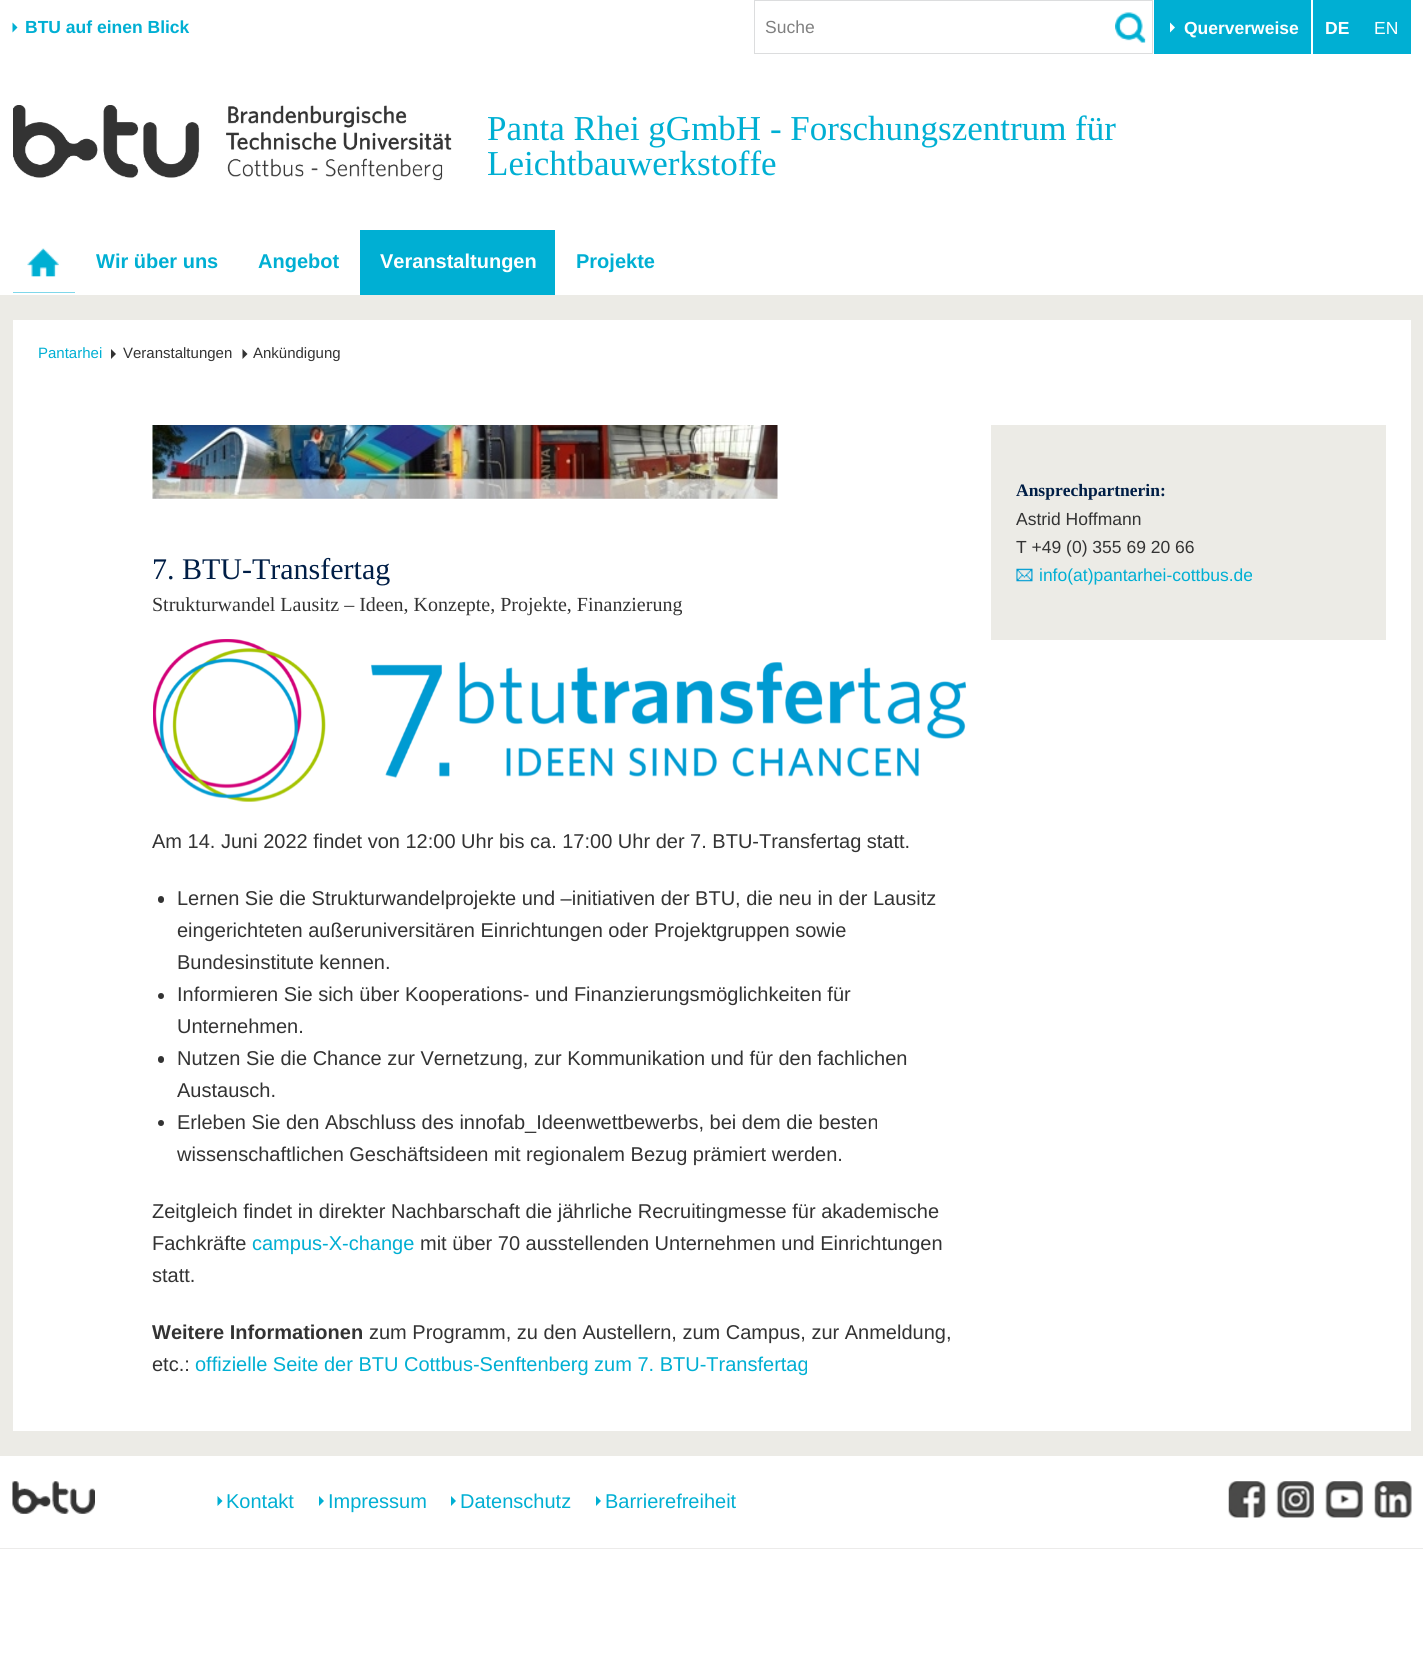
#include <cairo.h>
#include <math.h>
#include <stddef.h>

static cairo_t *ctx;

static void use_color(int r, int g, int b) {
    cairo_set_source_rgb(ctx, r / 255.0, g / 255.0, b / 255.0);
}

static void round_rect(double x, double y, double w, double h, double r) {
    cairo_new_sub_path(ctx);
    cairo_arc(ctx, x + w - r, y + h - r, r, 0, M_PI / 2);
    cairo_arc(ctx, x + r, y + h - r, r, M_PI / 2, M_PI);
    cairo_arc(ctx, x + r, y + r, r, M_PI, 1.5 * M_PI);
    cairo_arc(ctx, x + w - r, y + r, r, 1.5 * M_PI, 2 * M_PI);
    cairo_close_path(ctx);
}

static void picture(const char *path, double x, double y, double w, double h) {
    cairo_surface_t *image = cairo_image_surface_create_from_png(path);
    cairo_save(ctx);
    cairo_set_source_surface(ctx, image, x, y);
    cairo_rectangle(ctx, x, y, w, h);
    cairo_fill(ctx);
    cairo_restore(ctx);
    cairo_surface_destroy(image);
}

int main(void) {
    cairo_surface_t *surface = cairo_image_surface_create(CAIRO_FORMAT_RGB24, 1423, 1653);
    ctx = cairo_create(surface);
    cairo_font_options_t *options = cairo_font_options_create();
    cairo_font_options_set_hint_metrics(options, CAIRO_HINT_METRICS_OFF);
    cairo_font_options_set_hint_style(options, CAIRO_HINT_STYLE_NONE);
    cairo_set_font_options(ctx, options);
    cairo_set_miter_limit(ctx, 4);
    use_color(255, 255, 255);
    cairo_paint(ctx);
    use_color(0, 175, 211);
    cairo_new_path(ctx);
    cairo_move_to(ctx, 12.5, 32.5);
    cairo_line_to(ctx, 12.5, 22.5);
    cairo_line_to(ctx, 17.5, 27.5);
    cairo_close_path(ctx);
    cairo_fill(ctx);
    cairo_select_font_face(ctx, "Liberation Sans", CAIRO_FONT_SLANT_NORMAL, CAIRO_FONT_WEIGHT_BOLD);
    cairo_set_font_size(ctx, 17.5);
    cairo_move_to(ctx, 25, 33);
    cairo_show_text(ctx, "BTU auf einen Blick");
    cairo_rectangle(ctx, 754.5, 0.5, 398, 53);
    use_color(220, 221, 222);
    cairo_set_line_width(ctx, 1);
    cairo_stroke(ctx);
    cairo_select_font_face(ctx, "Liberation Sans", CAIRO_FONT_SLANT_NORMAL, CAIRO_FONT_WEIGHT_NORMAL);
    use_color(128, 128, 128);
    cairo_move_to(ctx, 765, 33);
    cairo_show_text(ctx, "Suche");
    picture("img1.png", 1115, 12, 31, 31);
    use_color(0, 175, 211);
    cairo_rectangle(ctx, 1154, 0, 157, 54);
    cairo_fill(ctx);
    use_color(255, 255, 255);
    cairo_new_path(ctx);
    cairo_move_to(ctx, 1170, 32.5);
    cairo_line_to(ctx, 1170, 22.5);
    cairo_line_to(ctx, 1175, 27.5);
    cairo_close_path(ctx);
    cairo_fill(ctx);
    cairo_select_font_face(ctx, "Liberation Sans", CAIRO_FONT_SLANT_NORMAL, CAIRO_FONT_WEIGHT_BOLD);
    cairo_move_to(ctx, 1184, 34);
    cairo_show_text(ctx, "Querverweise");
    use_color(0, 175, 211);
    cairo_rectangle(ctx, 1313, 0, 98, 54);
    cairo_fill(ctx);
    use_color(255, 255, 255);
    cairo_move_to(ctx, 1325, 34);
    cairo_show_text(ctx, "DE");
    cairo_select_font_face(ctx, "Liberation Sans", CAIRO_FONT_SLANT_NORMAL, CAIRO_FONT_WEIGHT_NORMAL);
    cairo_move_to(ctx, 1374, 34);
    cairo_show_text(ctx, "EN");
    picture("img2.png", 13, 105, 439, 76);
    cairo_select_font_face(ctx, "Liberation Serif", CAIRO_FONT_SLANT_NORMAL, CAIRO_FONT_WEIGHT_NORMAL);
    cairo_set_font_size(ctx, 35);
    use_color(0, 175, 211);
    cairo_move_to(ctx, 487, 140);
    cairo_show_text(ctx, "Panta Rhei gGmbH - Forschungszentrum für");
    cairo_move_to(ctx, 487, 175);
    cairo_show_text(ctx, "Leichtbauwerkstoffe");
    cairo_rectangle(ctx, 13, 248, 62, 45);
    cairo_fill(ctx);
    picture("img3.png", 13, 230, 62, 63);
    cairo_select_font_face(ctx, "Liberation Sans", CAIRO_FONT_SLANT_NORMAL, CAIRO_FONT_WEIGHT_BOLD);
    cairo_set_font_size(ctx, 20);
    cairo_move_to(ctx, 96, 268);
    cairo_show_text(ctx, "Wir über uns");
    cairo_move_to(ctx, 258, 268);
    cairo_show_text(ctx, "Angebot");
    cairo_rectangle(ctx, 360, 230, 195, 65);
    cairo_fill(ctx);
    use_color(255, 255, 255);
    cairo_move_to(ctx, 380, 268);
    cairo_show_text(ctx, "Veranstaltungen");
    use_color(0, 175, 211);
    cairo_move_to(ctx, 576, 268);
    cairo_show_text(ctx, "Projekte");
    use_color(236, 235, 230);
    cairo_rectangle(ctx, 0, 295, 1423, 1161);
    cairo_fill(ctx);
    use_color(255, 255, 255);
    cairo_rectangle(ctx, 13, 320, 1398, 1111);
    cairo_fill(ctx);
    cairo_select_font_face(ctx, "Liberation Sans", CAIRO_FONT_SLANT_NORMAL, CAIRO_FONT_WEIGHT_NORMAL);
    cairo_set_font_size(ctx, 15);
    use_color(0, 175, 211);
    cairo_move_to(ctx, 38, 358);
    cairo_show_text(ctx, "Pantarhei");
    use_color(51, 51, 51);
    cairo_new_path(ctx);
    cairo_move_to(ctx, 111, 359);
    cairo_line_to(ctx, 111, 349);
    cairo_line_to(ctx, 116, 354);
    cairo_close_path(ctx);
    cairo_fill(ctx);
    cairo_move_to(ctx, 123, 358);
    cairo_show_text(ctx, "Veranstaltungen");
    cairo_new_path(ctx);
    cairo_move_to(ctx, 242.5, 359);
    cairo_line_to(ctx, 242.5, 349);
    cairo_line_to(ctx, 247.5, 354);
    cairo_close_path(ctx);
    cairo_fill(ctx);
    cairo_move_to(ctx, 253, 358);
    cairo_show_text(ctx, "Ankündigung");
    use_color(236, 235, 230);
    cairo_rectangle(ctx, 991, 425, 395, 215);
    cairo_fill(ctx);
    cairo_select_font_face(ctx, "Liberation Serif", CAIRO_FONT_SLANT_NORMAL, CAIRO_FONT_WEIGHT_BOLD);
    cairo_set_font_size(ctx, 17.5);
    use_color(0, 30, 70);
    cairo_move_to(ctx, 1016, 496);
    cairo_show_text(ctx, "Ansprechpartnerin:");
    cairo_select_font_face(ctx, "Liberation Sans", CAIRO_FONT_SLANT_NORMAL, CAIRO_FONT_WEIGHT_NORMAL);
    use_color(51, 51, 51);
    cairo_move_to(ctx, 1016, 525);
    cairo_show_text(ctx, "Astrid Hoffmann");
    cairo_move_to(ctx, 1016, 553);
    cairo_show_text(ctx, "T +49 (0) 355 69 20 66");
    picture("img4.png", 1016, 568, 17, 14);
    use_color(0, 175, 211);
    cairo_move_to(ctx, 1039, 581);
    cairo_show_text(ctx, "info(at)pantarhei-cottbus.de");
    picture("img5.png", 152, 425, 626, 74);
    cairo_select_font_face(ctx, "Liberation Serif", CAIRO_FONT_SLANT_NORMAL, CAIRO_FONT_WEIGHT_NORMAL);
    cairo_set_font_size(ctx, 30);
    use_color(0, 30, 70);
    cairo_move_to(ctx, 152, 579);
    cairo_show_text(ctx, "7. BTU-Transfertag");
    cairo_set_font_size(ctx, 20);
    use_color(51, 51, 51);
    cairo_move_to(ctx, 152, 611);
    cairo_show_text(ctx, "Strukturwandel Lausitz – Ideen, Konzepte, Projekte, Finanzierung");
    picture("img6.png", 153, 639, 813, 163);
    cairo_select_font_face(ctx, "Liberation Sans", CAIRO_FONT_SLANT_NORMAL, CAIRO_FONT_WEIGHT_NORMAL);
    cairo_move_to(ctx, 152, 848);
    cairo_show_text(ctx, "Am 14. Juni 2022 findet von 12:00 Uhr bis ca. 17:00 Uhr der 7. BTU-Transfertag statt.");
    round_rect(158, 896, 6, 7, 3);
    cairo_fill(ctx);
    cairo_move_to(ctx, 177, 905);
    cairo_show_text(ctx, "Lernen Sie die Strukturwandelprojekte und –initiativen der BTU, die neu in der Lausitz");
    cairo_move_to(ctx, 177, 937);
    cairo_show_text(ctx, "eingerichteten außeruniversitären Einrichtungen oder Projektgruppen sowie");
    cairo_move_to(ctx, 177, 969);
    cairo_show_text(ctx, "Bundesinstitute kennen.");
    cairo_new_path(ctx);
    cairo_arc(ctx, 161, 996, 3, 0, 2 * M_PI);
    cairo_fill(ctx);
    cairo_move_to(ctx, 177, 1001);
    cairo_show_text(ctx, "Informieren Sie sich über Kooperations- und Finanzierungsmöglichkeiten für");
    cairo_move_to(ctx, 177, 1033);
    cairo_show_text(ctx, "Unternehmen.");
    round_rect(158, 1056, 6, 7, 3);
    cairo_fill(ctx);
    cairo_move_to(ctx, 177, 1065);
    cairo_show_text(ctx, "Nutzen Sie die Chance zur Vernetzung, zur Kommunikation und für den fachlichen");
    cairo_move_to(ctx, 177, 1097);
    cairo_show_text(ctx, "Austausch.");
    cairo_new_path(ctx);
    cairo_arc(ctx, 161, 1123, 3, 0, 2 * M_PI);
    cairo_fill(ctx);
    cairo_move_to(ctx, 177, 1129);
    cairo_show_text(ctx, "Erleben Sie den Abschluss des innofab_Ideenwettbewerbs, bei dem die besten");
    cairo_move_to(ctx, 177, 1161);
    cairo_show_text(ctx, "wissenschaftlichen Geschäftsideen mit regionalem Bezug prämiert werden.");
    cairo_move_to(ctx, 152, 1218);
    cairo_show_text(ctx, "Zeitgleich findet in direkter Nachbarschaft die jährliche Recruitingmesse für akademische");
    cairo_move_to(ctx, 152, 1250);
    cairo_show_text(ctx, "Fachkräfte");
    use_color(0, 175, 211);
    cairo_move_to(ctx, 252, 1250);
    cairo_show_text(ctx, "campus-X-change");
    use_color(51, 51, 51);
    cairo_move_to(ctx, 420, 1250);
    cairo_show_text(ctx, "mit über 70 ausstellenden Unternehmen und Einrichtungen");
    cairo_move_to(ctx, 152, 1282);
    cairo_show_text(ctx, "statt.");
    cairo_select_font_face(ctx, "Liberation Sans", CAIRO_FONT_SLANT_NORMAL, CAIRO_FONT_WEIGHT_BOLD);
    cairo_move_to(ctx, 152, 1339);
    cairo_show_text(ctx, "Weitere Informationen");
    cairo_select_font_face(ctx, "Liberation Sans", CAIRO_FONT_SLANT_NORMAL, CAIRO_FONT_WEIGHT_NORMAL);
    cairo_move_to(ctx, 369, 1339);
    cairo_show_text(ctx, "zum Programm, zu den Austellern, zum Campus, zur Anmeldung,");
    cairo_move_to(ctx, 152, 1371);
    cairo_show_text(ctx, "etc.:");
    use_color(0, 175, 211);
    cairo_move_to(ctx, 195, 1371);
    cairo_show_text(ctx, "offizielle Seite der BTU Cottbus-Senftenberg zum 7. BTU-Transfertag");
    picture("img7.png", 12, 1481, 83, 33);
    cairo_new_path(ctx);
    cairo_move_to(ctx, 217.5, 1506);
    cairo_line_to(ctx, 217.5, 1496);
    cairo_line_to(ctx, 222.5, 1501);
    cairo_close_path(ctx);
    cairo_fill(ctx);
    cairo_move_to(ctx, 226, 1508);
    cairo_show_text(ctx, "Kontakt");
    cairo_new_path(ctx);
    cairo_move_to(ctx, 319, 1506);
    cairo_line_to(ctx, 319, 1496);
    cairo_line_to(ctx, 324, 1501);
    cairo_close_path(ctx);
    cairo_fill(ctx);
    cairo_move_to(ctx, 328, 1508);
    cairo_show_text(ctx, "Impressum");
    cairo_new_path(ctx);
    cairo_move_to(ctx, 451, 1506);
    cairo_line_to(ctx, 451, 1496);
    cairo_line_to(ctx, 456, 1501);
    cairo_close_path(ctx);
    cairo_fill(ctx);
    cairo_move_to(ctx, 460, 1508);
    cairo_show_text(ctx, "Datenschutz");
    cairo_new_path(ctx);
    cairo_move_to(ctx, 596, 1506);
    cairo_line_to(ctx, 596, 1496);
    cairo_line_to(ctx, 601, 1501);
    cairo_close_path(ctx);
    cairo_fill(ctx);
    cairo_save(ctx);
    cairo_rectangle(ctx, 193, 1481, 543, 42);
    cairo_clip(ctx);
    cairo_move_to(ctx, 605, 1508);
    cairo_show_text(ctx, "Barrierefreiheit");
    cairo_restore(ctx);
    picture("img8.png", 1228, 1481, 38, 37);
    picture("img9.png", 1276, 1481, 38, 37);
    picture("img10.png", 1325, 1481, 38, 37);
    picture("img11.png", 1374, 1481, 38, 37);
    use_color(236, 235, 234);
    cairo_rectangle(ctx, 0, 1548, 1423, 1);
    cairo_fill(ctx);
    cairo_surface_write_to_png(surface, "result.png");
    cairo_font_options_destroy(options);
    cairo_destroy(ctx);
    cairo_surface_destroy(surface);
    return 0;
}
